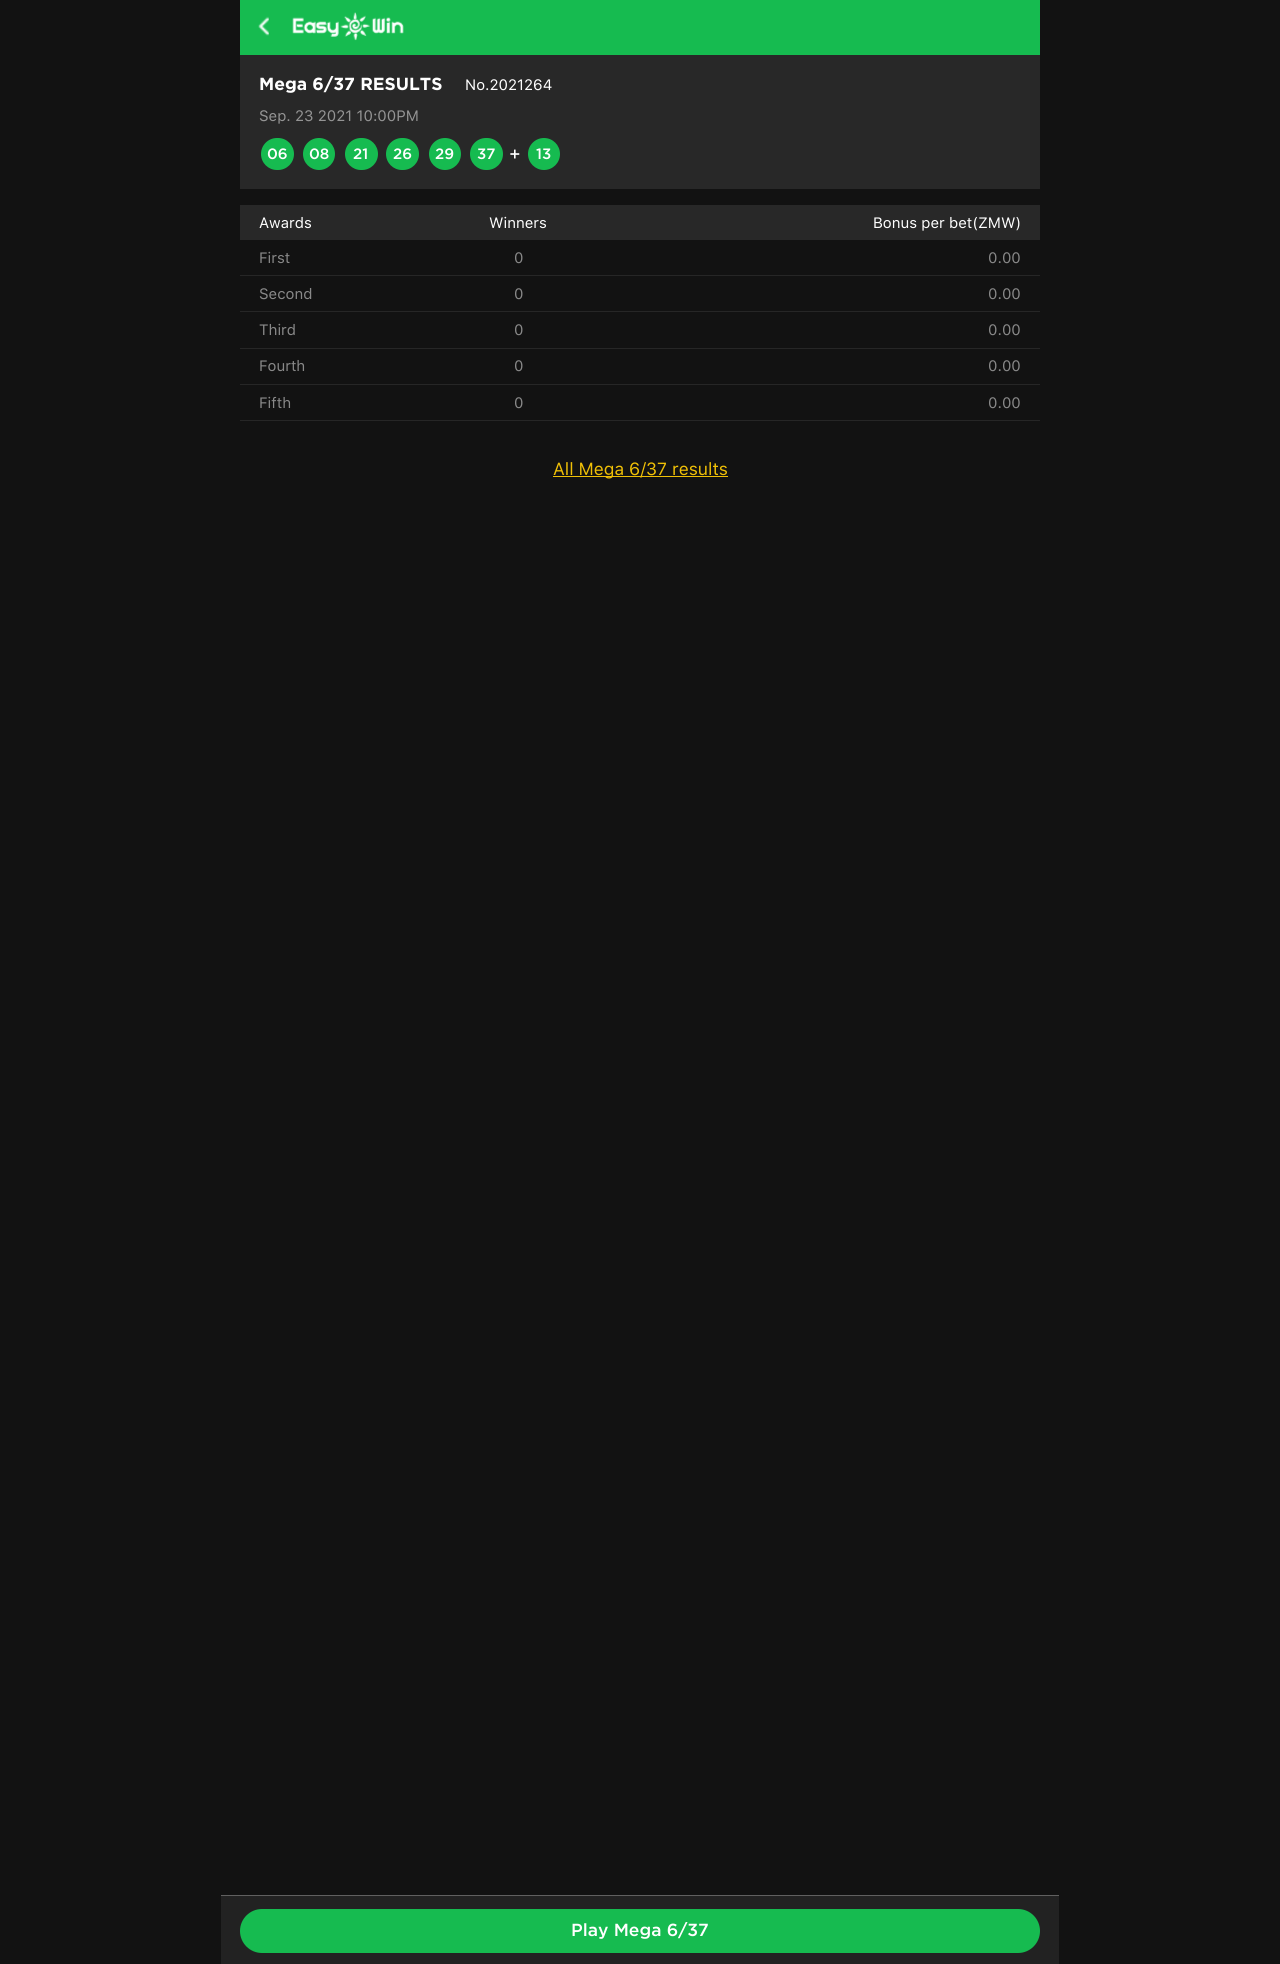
#include <cairo.h>
#include <math.h>
#include <stddef.h>

static cairo_t *ctx;

static void use_color(int r, int g, int b) {
    cairo_set_source_rgb(ctx, r / 255.0, g / 255.0, b / 255.0);
}

static void round_rect(double x, double y, double w, double h, double r) {
    cairo_new_sub_path(ctx);
    cairo_arc(ctx, x + w - r, y + h - r, r, 0, M_PI / 2);
    cairo_arc(ctx, x + r, y + h - r, r, M_PI / 2, M_PI);
    cairo_arc(ctx, x + r, y + r, r, M_PI, 1.5 * M_PI);
    cairo_arc(ctx, x + w - r, y + r, r, 1.5 * M_PI, 2 * M_PI);
    cairo_close_path(ctx);
}

static void picture(const char *path, double x, double y, double w, double h) {
    cairo_surface_t *image = cairo_image_surface_create_from_png(path);
    cairo_save(ctx);
    cairo_set_source_surface(ctx, image, x, y);
    cairo_rectangle(ctx, x, y, w, h);
    cairo_fill(ctx);
    cairo_restore(ctx);
    cairo_surface_destroy(image);
}

int main(void) {
    cairo_surface_t *surface = cairo_image_surface_create(CAIRO_FORMAT_RGB24, 1280, 1964);
    ctx = cairo_create(surface);
    cairo_font_options_t *options = cairo_font_options_create();
    cairo_font_options_set_hint_metrics(options, CAIRO_HINT_METRICS_OFF);
    cairo_font_options_set_hint_style(options, CAIRO_HINT_STYLE_NONE);
    cairo_set_font_options(ctx, options);
    cairo_set_miter_limit(ctx, 4);
    use_color(18, 18, 18);
    cairo_paint(ctx);
    use_color(22, 187, 80);
    cairo_rectangle(ctx, 240, 0, 800, 55);
    cairo_fill(ctx);
    picture("img1.png", 258, 16, 11, 20);
    picture("img2.png", 292, 12, 112, 29);
    use_color(40, 40, 40);
    cairo_rectangle(ctx, 240, 55, 800, 134);
    cairo_fill(ctx);
    cairo_select_font_face(ctx, "Gotham", CAIRO_FONT_SLANT_NORMAL, CAIRO_FONT_WEIGHT_BOLD);
    cairo_set_font_size(ctx, 17.5);
    use_color(255, 255, 255);
    cairo_move_to(ctx, 259, 90);
    cairo_show_text(ctx, "Mega 6/37 RESULTS");
    cairo_select_font_face(ctx, "SF Pro Text", CAIRO_FONT_SLANT_NORMAL, CAIRO_FONT_WEIGHT_NORMAL);
    cairo_set_font_size(ctx, 15);
    cairo_move_to(ctx, 465, 90);
    cairo_show_text(ctx, "No.2021264");
    use_color(148, 148, 148);
    cairo_move_to(ctx, 259, 121);
    cairo_show_text(ctx, "Sep. 23 2021 10:00PM");
    use_color(22, 187, 80);
    round_rect(261, 138, 33, 32, 16);
    cairo_fill(ctx);
    cairo_select_font_face(ctx, "Gotham Medium", CAIRO_FONT_SLANT_NORMAL, CAIRO_FONT_WEIGHT_NORMAL);
    use_color(255, 255, 255);
    cairo_move_to(ctx, 267, 159);
    cairo_show_text(ctx, "06");
    use_color(22, 187, 80);
    cairo_new_path(ctx);
    cairo_arc(ctx, 319, 154, 16, 0, 2 * M_PI);
    cairo_fill(ctx);
    use_color(255, 255, 255);
    cairo_move_to(ctx, 309, 159);
    cairo_show_text(ctx, "08");
    use_color(22, 187, 80);
    round_rect(345, 138, 33, 32, 16);
    cairo_fill(ctx);
    use_color(255, 255, 255);
    cairo_move_to(ctx, 353, 159);
    cairo_show_text(ctx, "21");
    use_color(22, 187, 80);
    round_rect(386, 138, 33, 32, 16);
    cairo_fill(ctx);
    use_color(255, 255, 255);
    cairo_move_to(ctx, 393, 159);
    cairo_show_text(ctx, "26");
    use_color(22, 187, 80);
    cairo_new_path(ctx);
    cairo_arc(ctx, 445, 154, 16, 0, 2 * M_PI);
    cairo_fill(ctx);
    use_color(255, 255, 255);
    cairo_move_to(ctx, 435, 159);
    cairo_show_text(ctx, "29");
    use_color(22, 187, 80);
    round_rect(470, 138, 33, 32, 16);
    cairo_fill(ctx);
    use_color(255, 255, 255);
    cairo_move_to(ctx, 477, 159);
    cairo_show_text(ctx, "37");
    cairo_select_font_face(ctx, "SF Pro Text Medium", CAIRO_FONT_SLANT_NORMAL, CAIRO_FONT_WEIGHT_NORMAL);
    cairo_set_font_size(ctx, 17.5);
    cairo_move_to(ctx, 509, 159);
    cairo_show_text(ctx, "+");
    use_color(22, 187, 80);
    cairo_new_path(ctx);
    cairo_arc(ctx, 544, 154, 16, 0, 2 * M_PI);
    cairo_fill(ctx);
    cairo_select_font_face(ctx, "Gotham Medium", CAIRO_FONT_SLANT_NORMAL, CAIRO_FONT_WEIGHT_NORMAL);
    cairo_set_font_size(ctx, 15);
    use_color(255, 255, 255);
    cairo_move_to(ctx, 536, 159);
    cairo_show_text(ctx, "13");
    use_color(40, 40, 40);
    cairo_rectangle(ctx, 240, 205, 800, 35);
    cairo_fill(ctx);
    cairo_select_font_face(ctx, "SF Pro Text", CAIRO_FONT_SLANT_NORMAL, CAIRO_FONT_WEIGHT_NORMAL);
    use_color(255, 255, 255);
    cairo_move_to(ctx, 259, 228);
    cairo_show_text(ctx, "Awards");
    cairo_move_to(ctx, 489, 228);
    cairo_show_text(ctx, "Winners");
    cairo_move_to(ctx, 873, 228);
    cairo_show_text(ctx, "Bonus per bet(ZMW)");
    use_color(38, 38, 38);
    cairo_rectangle(ctx, 240, 275, 800, 1);
    cairo_fill(ctx);
    use_color(137, 137, 137);
    cairo_move_to(ctx, 259, 263);
    cairo_show_text(ctx, "First");
    cairo_move_to(ctx, 514, 263);
    cairo_show_text(ctx, "0");
    cairo_move_to(ctx, 988, 263);
    cairo_show_text(ctx, "0.00");
    use_color(38, 38, 38);
    cairo_rectangle(ctx, 240, 311, 800, 1);
    cairo_fill(ctx);
    use_color(137, 137, 137);
    cairo_move_to(ctx, 259, 299);
    cairo_show_text(ctx, "Second");
    cairo_move_to(ctx, 514, 299);
    cairo_show_text(ctx, "0");
    cairo_move_to(ctx, 988, 299);
    cairo_show_text(ctx, "0.00");
    use_color(38, 38, 38);
    cairo_rectangle(ctx, 240, 348, 800, 1);
    cairo_fill(ctx);
    use_color(137, 137, 137);
    cairo_move_to(ctx, 259, 335);
    cairo_show_text(ctx, "Third");
    cairo_move_to(ctx, 514, 335);
    cairo_show_text(ctx, "0");
    cairo_move_to(ctx, 988, 335);
    cairo_show_text(ctx, "0.00");
    use_color(38, 38, 38);
    cairo_rectangle(ctx, 240, 384, 800, 1);
    cairo_fill(ctx);
    use_color(137, 137, 137);
    cairo_move_to(ctx, 259, 371);
    cairo_show_text(ctx, "Fourth");
    cairo_move_to(ctx, 514, 371);
    cairo_show_text(ctx, "0");
    cairo_move_to(ctx, 988, 371);
    cairo_show_text(ctx, "0.00");
    use_color(38, 38, 38);
    cairo_rectangle(ctx, 240, 420, 800, 1);
    cairo_fill(ctx);
    use_color(137, 137, 137);
    cairo_move_to(ctx, 259, 408);
    cairo_show_text(ctx, "Fifth");
    cairo_move_to(ctx, 514, 408);
    cairo_show_text(ctx, "0");
    cairo_move_to(ctx, 988, 408);
    cairo_show_text(ctx, "0.00");
    use_color(240, 192, 6);
    cairo_rectangle(ctx, 553, 476, 175, 1);
    cairo_fill(ctx);
    cairo_set_font_size(ctx, 17.5);
    cairo_move_to(ctx, 553, 475);
    cairo_show_text(ctx, "All Mega 6/37 results");
    use_color(34, 34, 34);
    cairo_rectangle(ctx, 221, 1896, 838, 68);
    cairo_fill(ctx);
    use_color(96, 96, 96);
    cairo_rectangle(ctx, 221, 1895, 838, 1);
    cairo_fill(ctx);
    use_color(22, 187, 80);
    round_rect(240, 1909, 800, 44, 22);
    cairo_fill(ctx);
    cairo_select_font_face(ctx, "Gotham Medium", CAIRO_FONT_SLANT_NORMAL, CAIRO_FONT_WEIGHT_NORMAL);
    use_color(255, 255, 255);
    cairo_move_to(ctx, 571, 1936);
    cairo_show_text(ctx, "Play Mega 6/37");
    cairo_surface_write_to_png(surface, "result.png");
    cairo_font_options_destroy(options);
    cairo_destroy(ctx);
    cairo_surface_destroy(surface);
    return 0;
}
